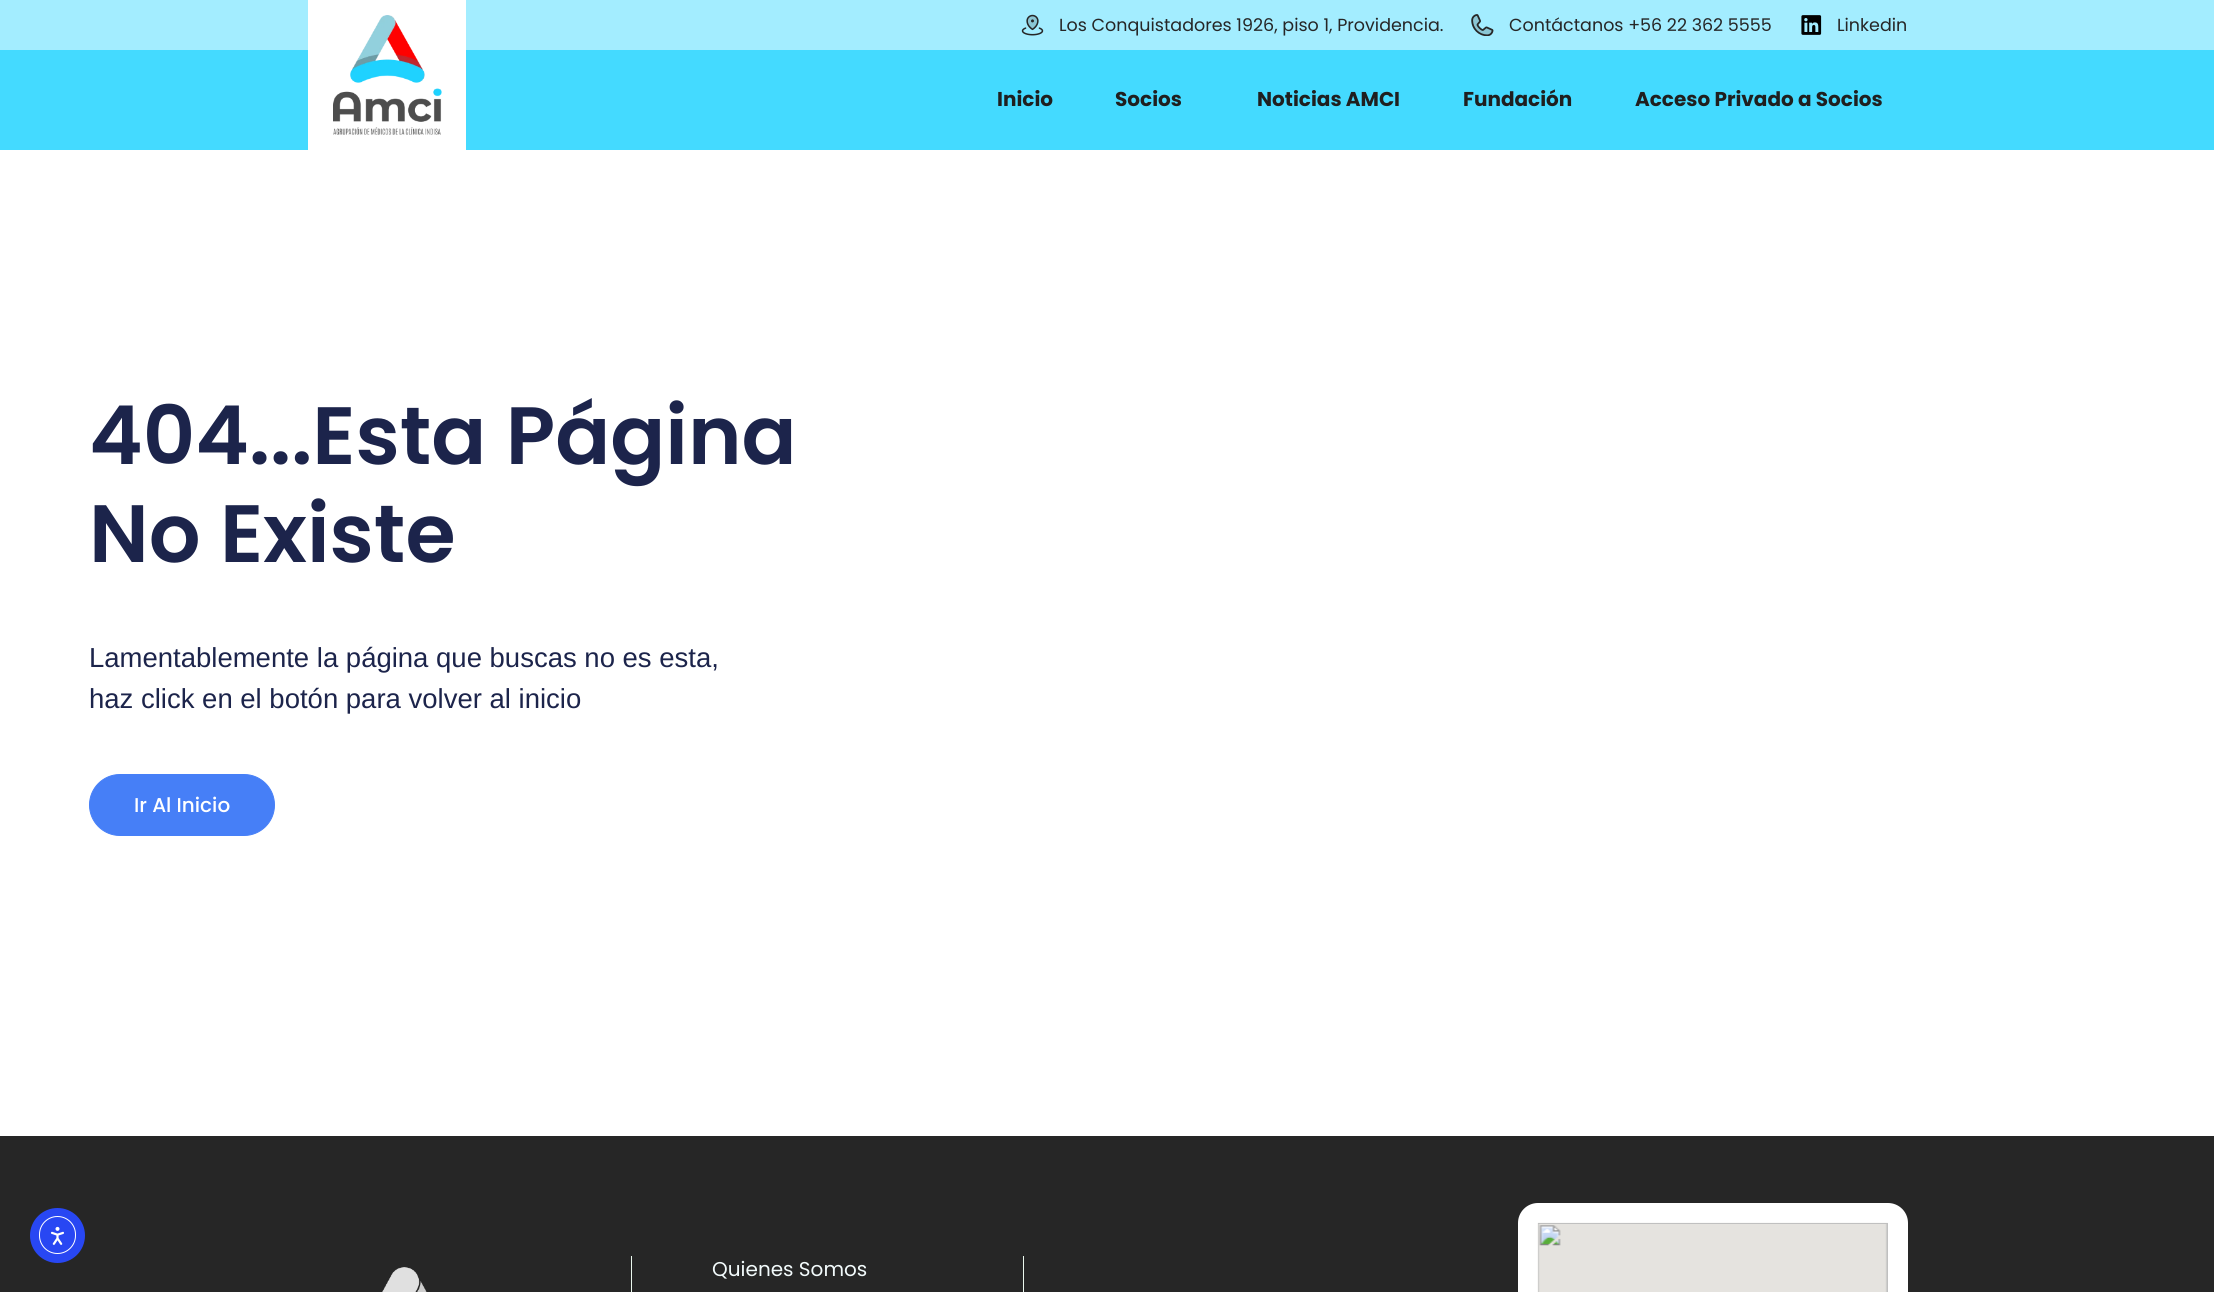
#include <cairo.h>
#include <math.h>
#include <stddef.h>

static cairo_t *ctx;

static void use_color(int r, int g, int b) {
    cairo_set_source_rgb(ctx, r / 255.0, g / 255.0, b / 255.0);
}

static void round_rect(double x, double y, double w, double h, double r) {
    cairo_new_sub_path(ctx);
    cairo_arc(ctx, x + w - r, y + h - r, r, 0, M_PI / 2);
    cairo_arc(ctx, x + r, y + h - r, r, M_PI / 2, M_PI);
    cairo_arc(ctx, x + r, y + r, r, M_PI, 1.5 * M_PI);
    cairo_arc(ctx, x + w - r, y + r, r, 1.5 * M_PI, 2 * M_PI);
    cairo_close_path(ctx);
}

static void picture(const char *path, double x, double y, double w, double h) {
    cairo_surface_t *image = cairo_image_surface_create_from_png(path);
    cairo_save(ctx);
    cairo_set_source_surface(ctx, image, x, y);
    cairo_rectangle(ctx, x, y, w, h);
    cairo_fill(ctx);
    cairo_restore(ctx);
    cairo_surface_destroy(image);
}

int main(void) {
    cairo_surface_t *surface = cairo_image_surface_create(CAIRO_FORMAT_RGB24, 2214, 1292);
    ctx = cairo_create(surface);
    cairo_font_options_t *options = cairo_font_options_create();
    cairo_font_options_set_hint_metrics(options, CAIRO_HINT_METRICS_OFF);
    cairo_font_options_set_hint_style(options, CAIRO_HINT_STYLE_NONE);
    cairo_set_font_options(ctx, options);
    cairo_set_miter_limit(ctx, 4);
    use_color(255, 255, 255);
    cairo_paint(ctx);
    use_color(38, 38, 38);
    cairo_rectangle(ctx, 0, 1136, 2214, 156);
    cairo_fill(ctx);
    use_color(40, 71, 243);
    cairo_arc(ctx, 57.5, 1235.5, 27.5, 0, 2 * M_PI);
    cairo_fill(ctx);
    round_rect(39.5, 1216.5, 36, 37, 18);
    use_color(255, 255, 255);
    cairo_set_line_width(ctx, 1);
    cairo_stroke(ctx);
    picture("img1.png", 51, 1226, 13, 19);
    use_color(163, 237, 255);
    cairo_rectangle(ctx, 0, 0, 2214, 50);
    cairo_fill(ctx);
    picture("img2.png", 1021, 14, 23, 22);
    cairo_select_font_face(ctx, "Poppins", CAIRO_FONT_SLANT_NORMAL, CAIRO_FONT_WEIGHT_NORMAL);
    cairo_set_font_size(ctx, 17.5);
    use_color(38, 38, 38);
    cairo_move_to(ctx, 1059, 31);
    cairo_show_text(ctx, "Los Conquistadores 1926, piso 1, Providencia.");
    picture("img3.png", 1471, 14, 23, 22);
    cairo_move_to(ctx, 1509, 31);
    cairo_show_text(ctx, "Contáctanos +56 22 362 5555");
    picture("img4.png", 1801, 15, 21, 20);
    cairo_move_to(ctx, 1837, 31);
    cairo_show_text(ctx, "Linkedin");
    use_color(68, 218, 255);
    cairo_rectangle(ctx, 0, 50, 2214, 100);
    cairo_fill(ctx);
    use_color(255, 255, 255);
    cairo_rectangle(ctx, 308, 0, 158, 150);
    cairo_fill(ctx);
    picture("img5.png", 333, 15, 109, 120);
    cairo_select_font_face(ctx, "Poppins", CAIRO_FONT_SLANT_NORMAL, CAIRO_FONT_WEIGHT_BOLD);
    cairo_set_font_size(ctx, 20);
    use_color(31, 31, 31);
    cairo_move_to(ctx, 997, 106);
    cairo_show_text(ctx, "Inicio");
    cairo_move_to(ctx, 1115, 106);
    cairo_show_text(ctx, "Socios");
    cairo_move_to(ctx, 1257, 106);
    cairo_show_text(ctx, "Noticias AMCI");
    cairo_move_to(ctx, 1463, 106);
    cairo_show_text(ctx, "Fundación");
    cairo_move_to(ctx, 1635, 106);
    cairo_show_text(ctx, "Acceso Privado a Socios");
    cairo_select_font_face(ctx, "Poppins SemiBold", CAIRO_FONT_SLANT_NORMAL, CAIRO_FONT_WEIGHT_NORMAL);
    cairo_set_font_size(ctx, 81.25);
    use_color(28, 36, 75);
    cairo_move_to(ctx, 89, 464);
    cairo_show_text(ctx, "404...Esta Página");
    cairo_move_to(ctx, 89, 562);
    cairo_show_text(ctx, "No Existe");
    cairo_select_font_face(ctx, "Liberation Sans", CAIRO_FONT_SLANT_NORMAL, CAIRO_FONT_WEIGHT_NORMAL);
    cairo_set_font_size(ctx, 27.5);
    cairo_move_to(ctx, 89, 667);
    cairo_show_text(ctx, "Lamentablemente la página que buscas no es esta,");
    cairo_move_to(ctx, 89, 708);
    cairo_show_text(ctx, "haz click en el botón para volver al inicio");
    use_color(70, 127, 247);
    round_rect(89.5, 774.5, 185, 61, 30.5);
    cairo_fill_preserve(ctx);
    cairo_stroke(ctx);
    cairo_select_font_face(ctx, "Poppins Medium", CAIRO_FONT_SLANT_NORMAL, CAIRO_FONT_WEIGHT_NORMAL);
    cairo_set_font_size(ctx, 20);
    use_color(255, 255, 255);
    cairo_move_to(ctx, 134, 812);
    cairo_show_text(ctx, "Ir Al Inicio");
    picture("img6.png", 382, 1267, 45, 25);
    use_color(234, 247, 237);
    cairo_rectangle(ctx, 1023, 1256, 1, 36);
    cairo_fill(ctx);
    cairo_rectangle(ctx, 631, 1256, 1, 36);
    cairo_fill(ctx);
    cairo_select_font_face(ctx, "Poppins", CAIRO_FONT_SLANT_NORMAL, CAIRO_FONT_WEIGHT_NORMAL);
    use_color(242, 250, 251);
    cairo_move_to(ctx, 712, 1276);
    cairo_show_text(ctx, "Quienes Somos");
    use_color(255, 255, 255);
    round_rect(1518, 1203, 390, 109, 20);
    cairo_fill(ctx);
    picture("img7.png", 1537, 1222, 351, 70);
    cairo_surface_write_to_png(surface, "result.png");
    cairo_font_options_destroy(options);
    cairo_destroy(ctx);
    cairo_surface_destroy(surface);
    return 0;
}
